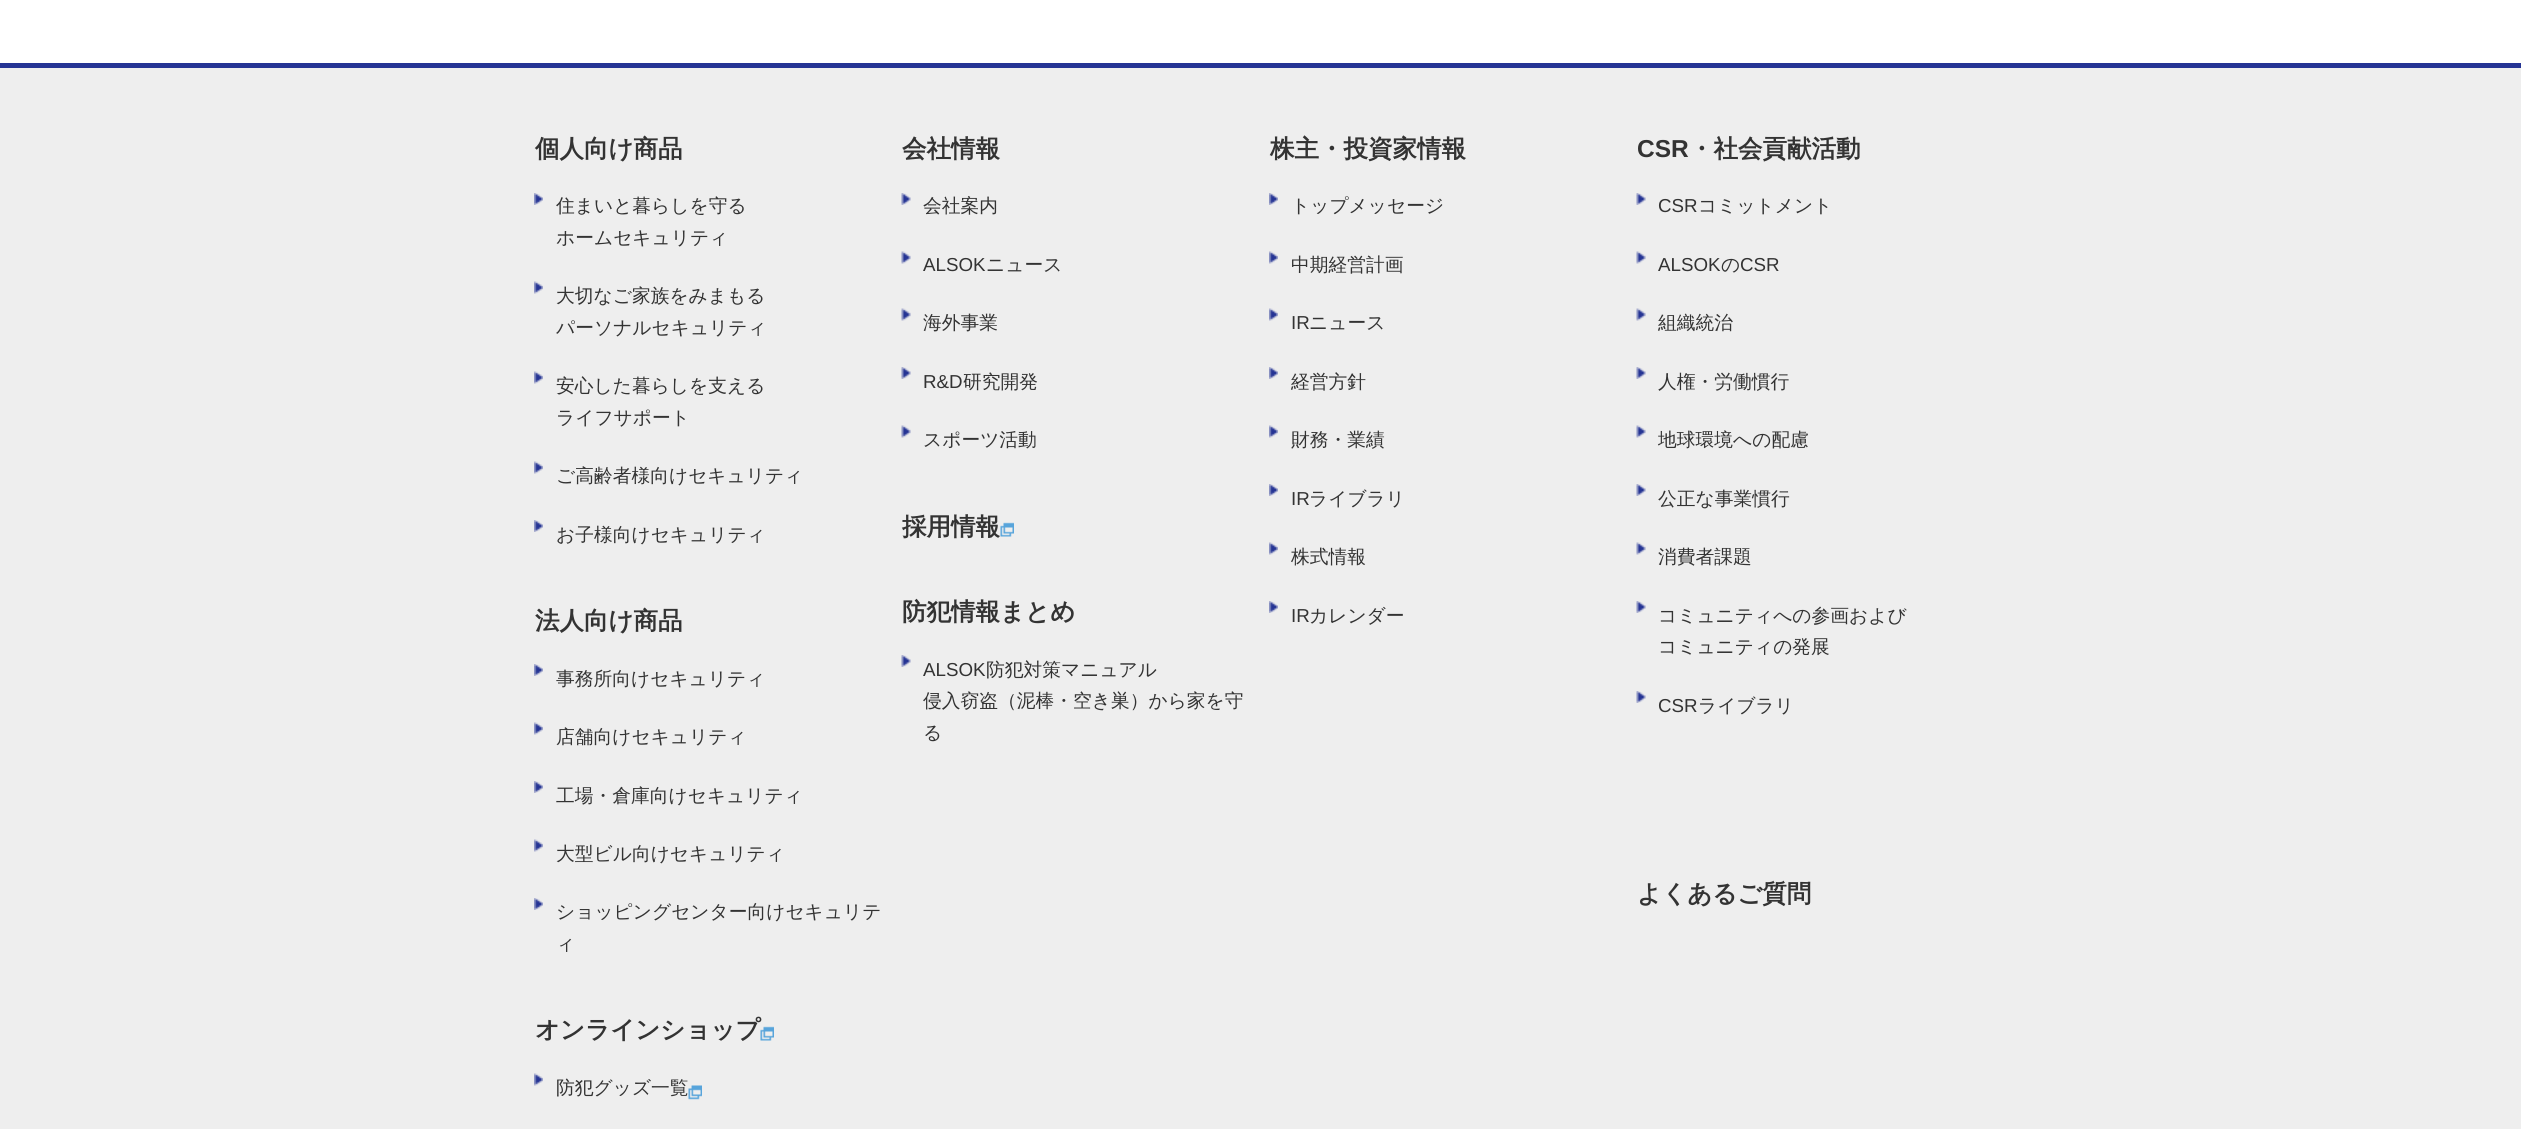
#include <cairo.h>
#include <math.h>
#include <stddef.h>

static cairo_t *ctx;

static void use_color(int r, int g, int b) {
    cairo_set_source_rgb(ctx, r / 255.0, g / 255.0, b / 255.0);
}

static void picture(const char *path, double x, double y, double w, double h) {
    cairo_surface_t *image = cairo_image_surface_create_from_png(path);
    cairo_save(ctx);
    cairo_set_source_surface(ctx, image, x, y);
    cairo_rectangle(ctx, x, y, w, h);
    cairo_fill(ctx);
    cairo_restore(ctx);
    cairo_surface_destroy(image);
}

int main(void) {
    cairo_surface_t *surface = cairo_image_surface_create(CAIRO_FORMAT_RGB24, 2521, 1129);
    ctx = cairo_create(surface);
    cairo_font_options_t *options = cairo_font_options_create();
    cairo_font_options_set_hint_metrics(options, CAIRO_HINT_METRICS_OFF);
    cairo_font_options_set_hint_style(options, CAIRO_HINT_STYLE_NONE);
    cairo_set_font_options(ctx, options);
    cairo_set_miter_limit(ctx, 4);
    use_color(255, 255, 255);
    cairo_paint(ctx);
    use_color(238, 238, 238);
    cairo_rectangle(ctx, 0, 68, 2521, 1061);
    cairo_fill(ctx);
    use_color(37, 52, 148);
    cairo_rectangle(ctx, 0, 63, 2521, 5);
    cairo_fill(ctx);
    cairo_select_font_face(ctx, "WenQuanYi Zen Hei", CAIRO_FONT_SLANT_NORMAL, CAIRO_FONT_WEIGHT_BOLD);
    cairo_set_font_size(ctx, 24.5);
    use_color(51, 51, 51);
    cairo_move_to(ctx, 535, 157);
    cairo_show_text(ctx, "個人向け商品");
    picture("img1.png", 534, 193, 9, 12);
    cairo_select_font_face(ctx, "WenQuanYi Zen Hei Medium", CAIRO_FONT_SLANT_NORMAL, CAIRO_FONT_WEIGHT_NORMAL);
    cairo_set_font_size(ctx, 18.75);
    cairo_move_to(ctx, 556, 212);
    cairo_show_text(ctx, "住まいと暮らしを守る");
    cairo_move_to(ctx, 556, 244);
    cairo_show_text(ctx, "ホームセキュリティ");
    picture("img2.png", 534, 281, 9, 13);
    cairo_move_to(ctx, 556, 302);
    cairo_show_text(ctx, "大切なご家族をみまもる");
    cairo_move_to(ctx, 556, 334);
    cairo_show_text(ctx, "パーソナルセキュリティ");
    picture("img2.png", 534, 371, 9, 13);
    cairo_move_to(ctx, 556, 392);
    cairo_show_text(ctx, "安心した暮らしを支える");
    cairo_move_to(ctx, 556, 424);
    cairo_show_text(ctx, "ライフサポート");
    picture("img2.png", 534, 461, 9, 13);
    cairo_move_to(ctx, 556, 482);
    cairo_show_text(ctx, "ご高齢者様向けセキュリティ");
    picture("img1.png", 534, 520, 9, 12);
    cairo_move_to(ctx, 556, 541);
    cairo_show_text(ctx, "お子様向けセキュリティ");
    cairo_select_font_face(ctx, "WenQuanYi Zen Hei", CAIRO_FONT_SLANT_NORMAL, CAIRO_FONT_WEIGHT_BOLD);
    cairo_set_font_size(ctx, 24.5);
    cairo_move_to(ctx, 535, 629);
    cairo_show_text(ctx, "法人向け商品");
    picture("img1.png", 534, 664, 9, 12);
    cairo_select_font_face(ctx, "WenQuanYi Zen Hei Medium", CAIRO_FONT_SLANT_NORMAL, CAIRO_FONT_WEIGHT_NORMAL);
    cairo_set_font_size(ctx, 18.75);
    cairo_move_to(ctx, 556, 685);
    cairo_show_text(ctx, "事務所向けセキュリティ");
    picture("img2.png", 534, 722, 9, 13);
    cairo_move_to(ctx, 556, 743);
    cairo_show_text(ctx, "店舗向けセキュリティ");
    picture("img1.png", 534, 781, 9, 12);
    cairo_move_to(ctx, 556, 802);
    cairo_show_text(ctx, "工場・倉庫向けセキュリティ");
    picture("img2.png", 534, 839, 9, 13);
    cairo_move_to(ctx, 556, 860);
    cairo_show_text(ctx, "大型ビル向けセキュリティ");
    picture("img1.png", 534, 898, 9, 12);
    cairo_move_to(ctx, 556, 918);
    cairo_show_text(ctx, "ショッピングセンター向けセキュリテ");
    cairo_move_to(ctx, 556, 950);
    cairo_show_text(ctx, "ィ");
    cairo_select_font_face(ctx, "WenQuanYi Zen Hei", CAIRO_FONT_SLANT_NORMAL, CAIRO_FONT_WEIGHT_BOLD);
    cairo_set_font_size(ctx, 24.5);
    cairo_move_to(ctx, 535, 1038);
    cairo_show_text(ctx, "オンラインショップ");
    picture("img3.png", 760, 1026, 14, 15);
    picture("img2.png", 534, 1073, 9, 13);
    cairo_select_font_face(ctx, "WenQuanYi Zen Hei Medium", CAIRO_FONT_SLANT_NORMAL, CAIRO_FONT_WEIGHT_NORMAL);
    cairo_set_font_size(ctx, 18.75);
    cairo_move_to(ctx, 556, 1094);
    cairo_show_text(ctx, "防犯グッズ一覧");
    picture("img4.png", 688, 1085, 14, 15);
    cairo_select_font_face(ctx, "WenQuanYi Zen Hei", CAIRO_FONT_SLANT_NORMAL, CAIRO_FONT_WEIGHT_BOLD);
    cairo_set_font_size(ctx, 24.5);
    cairo_move_to(ctx, 902, 157);
    cairo_show_text(ctx, "会社情報");
    picture("img5.png", 901, 193, 10, 12);
    cairo_select_font_face(ctx, "WenQuanYi Zen Hei Medium", CAIRO_FONT_SLANT_NORMAL, CAIRO_FONT_WEIGHT_NORMAL);
    cairo_set_font_size(ctx, 18.75);
    cairo_move_to(ctx, 923, 212);
    cairo_show_text(ctx, "会社案内");
    picture("img6.png", 901, 251, 10, 13);
    cairo_select_font_face(ctx, "Liberation Sans", CAIRO_FONT_SLANT_NORMAL, CAIRO_FONT_WEIGHT_NORMAL);
    cairo_move_to(ctx, 923, 271);
    cairo_show_text(ctx, "ALSOK");
    cairo_select_font_face(ctx, "WenQuanYi Zen Hei Medium", CAIRO_FONT_SLANT_NORMAL, CAIRO_FONT_WEIGHT_NORMAL);
    cairo_move_to(ctx, 986, 271);
    cairo_show_text(ctx, "ニュース");
    picture("img6.png", 901, 308, 10, 13);
    cairo_move_to(ctx, 923, 329);
    cairo_show_text(ctx, "海外事業");
    picture("img5.png", 901, 367, 10, 12);
    cairo_select_font_face(ctx, "Liberation Sans", CAIRO_FONT_SLANT_NORMAL, CAIRO_FONT_WEIGHT_NORMAL);
    cairo_move_to(ctx, 923, 388);
    cairo_show_text(ctx, "R&D");
    cairo_select_font_face(ctx, "WenQuanYi Zen Hei Medium", CAIRO_FONT_SLANT_NORMAL, CAIRO_FONT_WEIGHT_NORMAL);
    cairo_move_to(ctx, 963, 388);
    cairo_show_text(ctx, "研究開発");
    picture("img6.png", 901, 425, 10, 13);
    cairo_move_to(ctx, 923, 446);
    cairo_show_text(ctx, "スポーツ活動");
    cairo_select_font_face(ctx, "WenQuanYi Zen Hei", CAIRO_FONT_SLANT_NORMAL, CAIRO_FONT_WEIGHT_BOLD);
    cairo_set_font_size(ctx, 24.5);
    cairo_move_to(ctx, 902, 535);
    cairo_show_text(ctx, "採用情報");
    picture("img3.png", 1000, 522, 14, 15);
    cairo_move_to(ctx, 902, 620);
    cairo_show_text(ctx, "防犯情報まとめ");
    picture("img5.png", 901, 655, 10, 12);
    cairo_select_font_face(ctx, "Liberation Sans", CAIRO_FONT_SLANT_NORMAL, CAIRO_FONT_WEIGHT_NORMAL);
    cairo_set_font_size(ctx, 18.75);
    cairo_move_to(ctx, 923, 676);
    cairo_show_text(ctx, "ALSOK");
    cairo_select_font_face(ctx, "WenQuanYi Zen Hei Medium", CAIRO_FONT_SLANT_NORMAL, CAIRO_FONT_WEIGHT_NORMAL);
    cairo_move_to(ctx, 986, 676);
    cairo_show_text(ctx, "防犯対策マニュアル");
    cairo_move_to(ctx, 923, 707);
    cairo_show_text(ctx, "侵入窃盗（泥棒・空き巣）から家を守");
    cairo_move_to(ctx, 923, 739);
    cairo_show_text(ctx, "る");
    cairo_select_font_face(ctx, "WenQuanYi Zen Hei", CAIRO_FONT_SLANT_NORMAL, CAIRO_FONT_WEIGHT_BOLD);
    cairo_set_font_size(ctx, 24.5);
    cairo_move_to(ctx, 1270, 157);
    cairo_show_text(ctx, "株主・投資家情報");
    picture("img1.png", 1269, 193, 9, 12);
    cairo_select_font_face(ctx, "WenQuanYi Zen Hei Medium", CAIRO_FONT_SLANT_NORMAL, CAIRO_FONT_WEIGHT_NORMAL);
    cairo_set_font_size(ctx, 18.75);
    cairo_move_to(ctx, 1291, 212);
    cairo_show_text(ctx, "トップメッセージ");
    picture("img2.png", 1269, 251, 9, 13);
    cairo_move_to(ctx, 1291, 271);
    cairo_show_text(ctx, "中期経営計画");
    picture("img2.png", 1269, 308, 9, 13);
    cairo_select_font_face(ctx, "Liberation Sans", CAIRO_FONT_SLANT_NORMAL, CAIRO_FONT_WEIGHT_NORMAL);
    cairo_move_to(ctx, 1291, 329);
    cairo_show_text(ctx, "IR");
    cairo_select_font_face(ctx, "WenQuanYi Zen Hei Medium", CAIRO_FONT_SLANT_NORMAL, CAIRO_FONT_WEIGHT_NORMAL);
    cairo_move_to(ctx, 1309, 329);
    cairo_show_text(ctx, "ニュース");
    picture("img1.png", 1269, 367, 9, 12);
    cairo_move_to(ctx, 1291, 388);
    cairo_show_text(ctx, "経営方針");
    picture("img2.png", 1269, 425, 9, 13);
    cairo_move_to(ctx, 1291, 446);
    cairo_show_text(ctx, "財務・業績");
    picture("img1.png", 1269, 484, 9, 12);
    cairo_select_font_face(ctx, "Liberation Sans", CAIRO_FONT_SLANT_NORMAL, CAIRO_FONT_WEIGHT_NORMAL);
    cairo_move_to(ctx, 1291, 505);
    cairo_show_text(ctx, "IR");
    cairo_select_font_face(ctx, "WenQuanYi Zen Hei Medium", CAIRO_FONT_SLANT_NORMAL, CAIRO_FONT_WEIGHT_NORMAL);
    cairo_move_to(ctx, 1309, 505);
    cairo_show_text(ctx, "ライブラリ");
    picture("img2.png", 1269, 542, 9, 13);
    cairo_move_to(ctx, 1291, 563);
    cairo_show_text(ctx, "株式情報");
    picture("img1.png", 1269, 601, 9, 12);
    cairo_select_font_face(ctx, "Liberation Sans", CAIRO_FONT_SLANT_NORMAL, CAIRO_FONT_WEIGHT_NORMAL);
    cairo_move_to(ctx, 1291, 622);
    cairo_show_text(ctx, "IR");
    cairo_select_font_face(ctx, "WenQuanYi Zen Hei Medium", CAIRO_FONT_SLANT_NORMAL, CAIRO_FONT_WEIGHT_NORMAL);
    cairo_move_to(ctx, 1309, 622);
    cairo_show_text(ctx, "カレンダー");
    cairo_select_font_face(ctx, "Liberation Sans", CAIRO_FONT_SLANT_NORMAL, CAIRO_FONT_WEIGHT_BOLD);
    cairo_set_font_size(ctx, 24.5);
    cairo_move_to(ctx, 1637, 157);
    cairo_show_text(ctx, "CSR");
    cairo_select_font_face(ctx, "WenQuanYi Zen Hei", CAIRO_FONT_SLANT_NORMAL, CAIRO_FONT_WEIGHT_BOLD);
    cairo_move_to(ctx, 1689, 157);
    cairo_show_text(ctx, "・社会貢献活動");
    picture("img5.png", 1636, 193, 10, 12);
    cairo_select_font_face(ctx, "Liberation Sans", CAIRO_FONT_SLANT_NORMAL, CAIRO_FONT_WEIGHT_NORMAL);
    cairo_set_font_size(ctx, 18.75);
    cairo_move_to(ctx, 1658, 212);
    cairo_show_text(ctx, "CSR");
    cairo_select_font_face(ctx, "WenQuanYi Zen Hei Medium", CAIRO_FONT_SLANT_NORMAL, CAIRO_FONT_WEIGHT_NORMAL);
    cairo_move_to(ctx, 1698, 212);
    cairo_show_text(ctx, "コミットメント");
    picture("img6.png", 1636, 251, 10, 13);
    cairo_select_font_face(ctx, "Liberation Sans", CAIRO_FONT_SLANT_NORMAL, CAIRO_FONT_WEIGHT_NORMAL);
    cairo_move_to(ctx, 1658, 271);
    cairo_show_text(ctx, "ALSOK");
    cairo_select_font_face(ctx, "WenQuanYi Zen Hei Medium", CAIRO_FONT_SLANT_NORMAL, CAIRO_FONT_WEIGHT_NORMAL);
    cairo_move_to(ctx, 1721, 271);
    cairo_show_text(ctx, "の");
    cairo_select_font_face(ctx, "Liberation Sans", CAIRO_FONT_SLANT_NORMAL, CAIRO_FONT_WEIGHT_NORMAL);
    cairo_move_to(ctx, 1740, 271);
    cairo_show_text(ctx, "CSR");
    picture("img6.png", 1636, 308, 10, 13);
    cairo_select_font_face(ctx, "WenQuanYi Zen Hei Medium", CAIRO_FONT_SLANT_NORMAL, CAIRO_FONT_WEIGHT_NORMAL);
    cairo_move_to(ctx, 1658, 329);
    cairo_show_text(ctx, "組織統治");
    picture("img5.png", 1636, 367, 10, 12);
    cairo_move_to(ctx, 1658, 388);
    cairo_show_text(ctx, "人権・労働慣行");
    picture("img6.png", 1636, 425, 10, 13);
    cairo_move_to(ctx, 1658, 446);
    cairo_show_text(ctx, "地球環境への配慮");
    picture("img5.png", 1636, 484, 10, 12);
    cairo_move_to(ctx, 1658, 505);
    cairo_show_text(ctx, "公正な事業慣行");
    picture("img6.png", 1636, 542, 10, 13);
    cairo_move_to(ctx, 1658, 563);
    cairo_show_text(ctx, "消費者課題");
    picture("img5.png", 1636, 601, 10, 12);
    cairo_move_to(ctx, 1658, 622);
    cairo_show_text(ctx, "コミュニティへの参画および");
    cairo_move_to(ctx, 1658, 653);
    cairo_show_text(ctx, "コミュニティの発展");
    picture("img5.png", 1636, 691, 10, 12);
    cairo_select_font_face(ctx, "Liberation Sans", CAIRO_FONT_SLANT_NORMAL, CAIRO_FONT_WEIGHT_NORMAL);
    cairo_move_to(ctx, 1658, 712);
    cairo_show_text(ctx, "CSR");
    cairo_select_font_face(ctx, "WenQuanYi Zen Hei Medium", CAIRO_FONT_SLANT_NORMAL, CAIRO_FONT_WEIGHT_NORMAL);
    cairo_move_to(ctx, 1698, 712);
    cairo_show_text(ctx, "ライブラリ");
    cairo_select_font_face(ctx, "WenQuanYi Zen Hei", CAIRO_FONT_SLANT_NORMAL, CAIRO_FONT_WEIGHT_BOLD);
    cairo_set_font_size(ctx, 24.5);
    cairo_move_to(ctx, 1637, 902);
    cairo_show_text(ctx, "よくあるご質問");
    cairo_surface_write_to_png(surface, "result.png");
    cairo_font_options_destroy(options);
    cairo_destroy(ctx);
    cairo_surface_destroy(surface);
    return 0;
}
